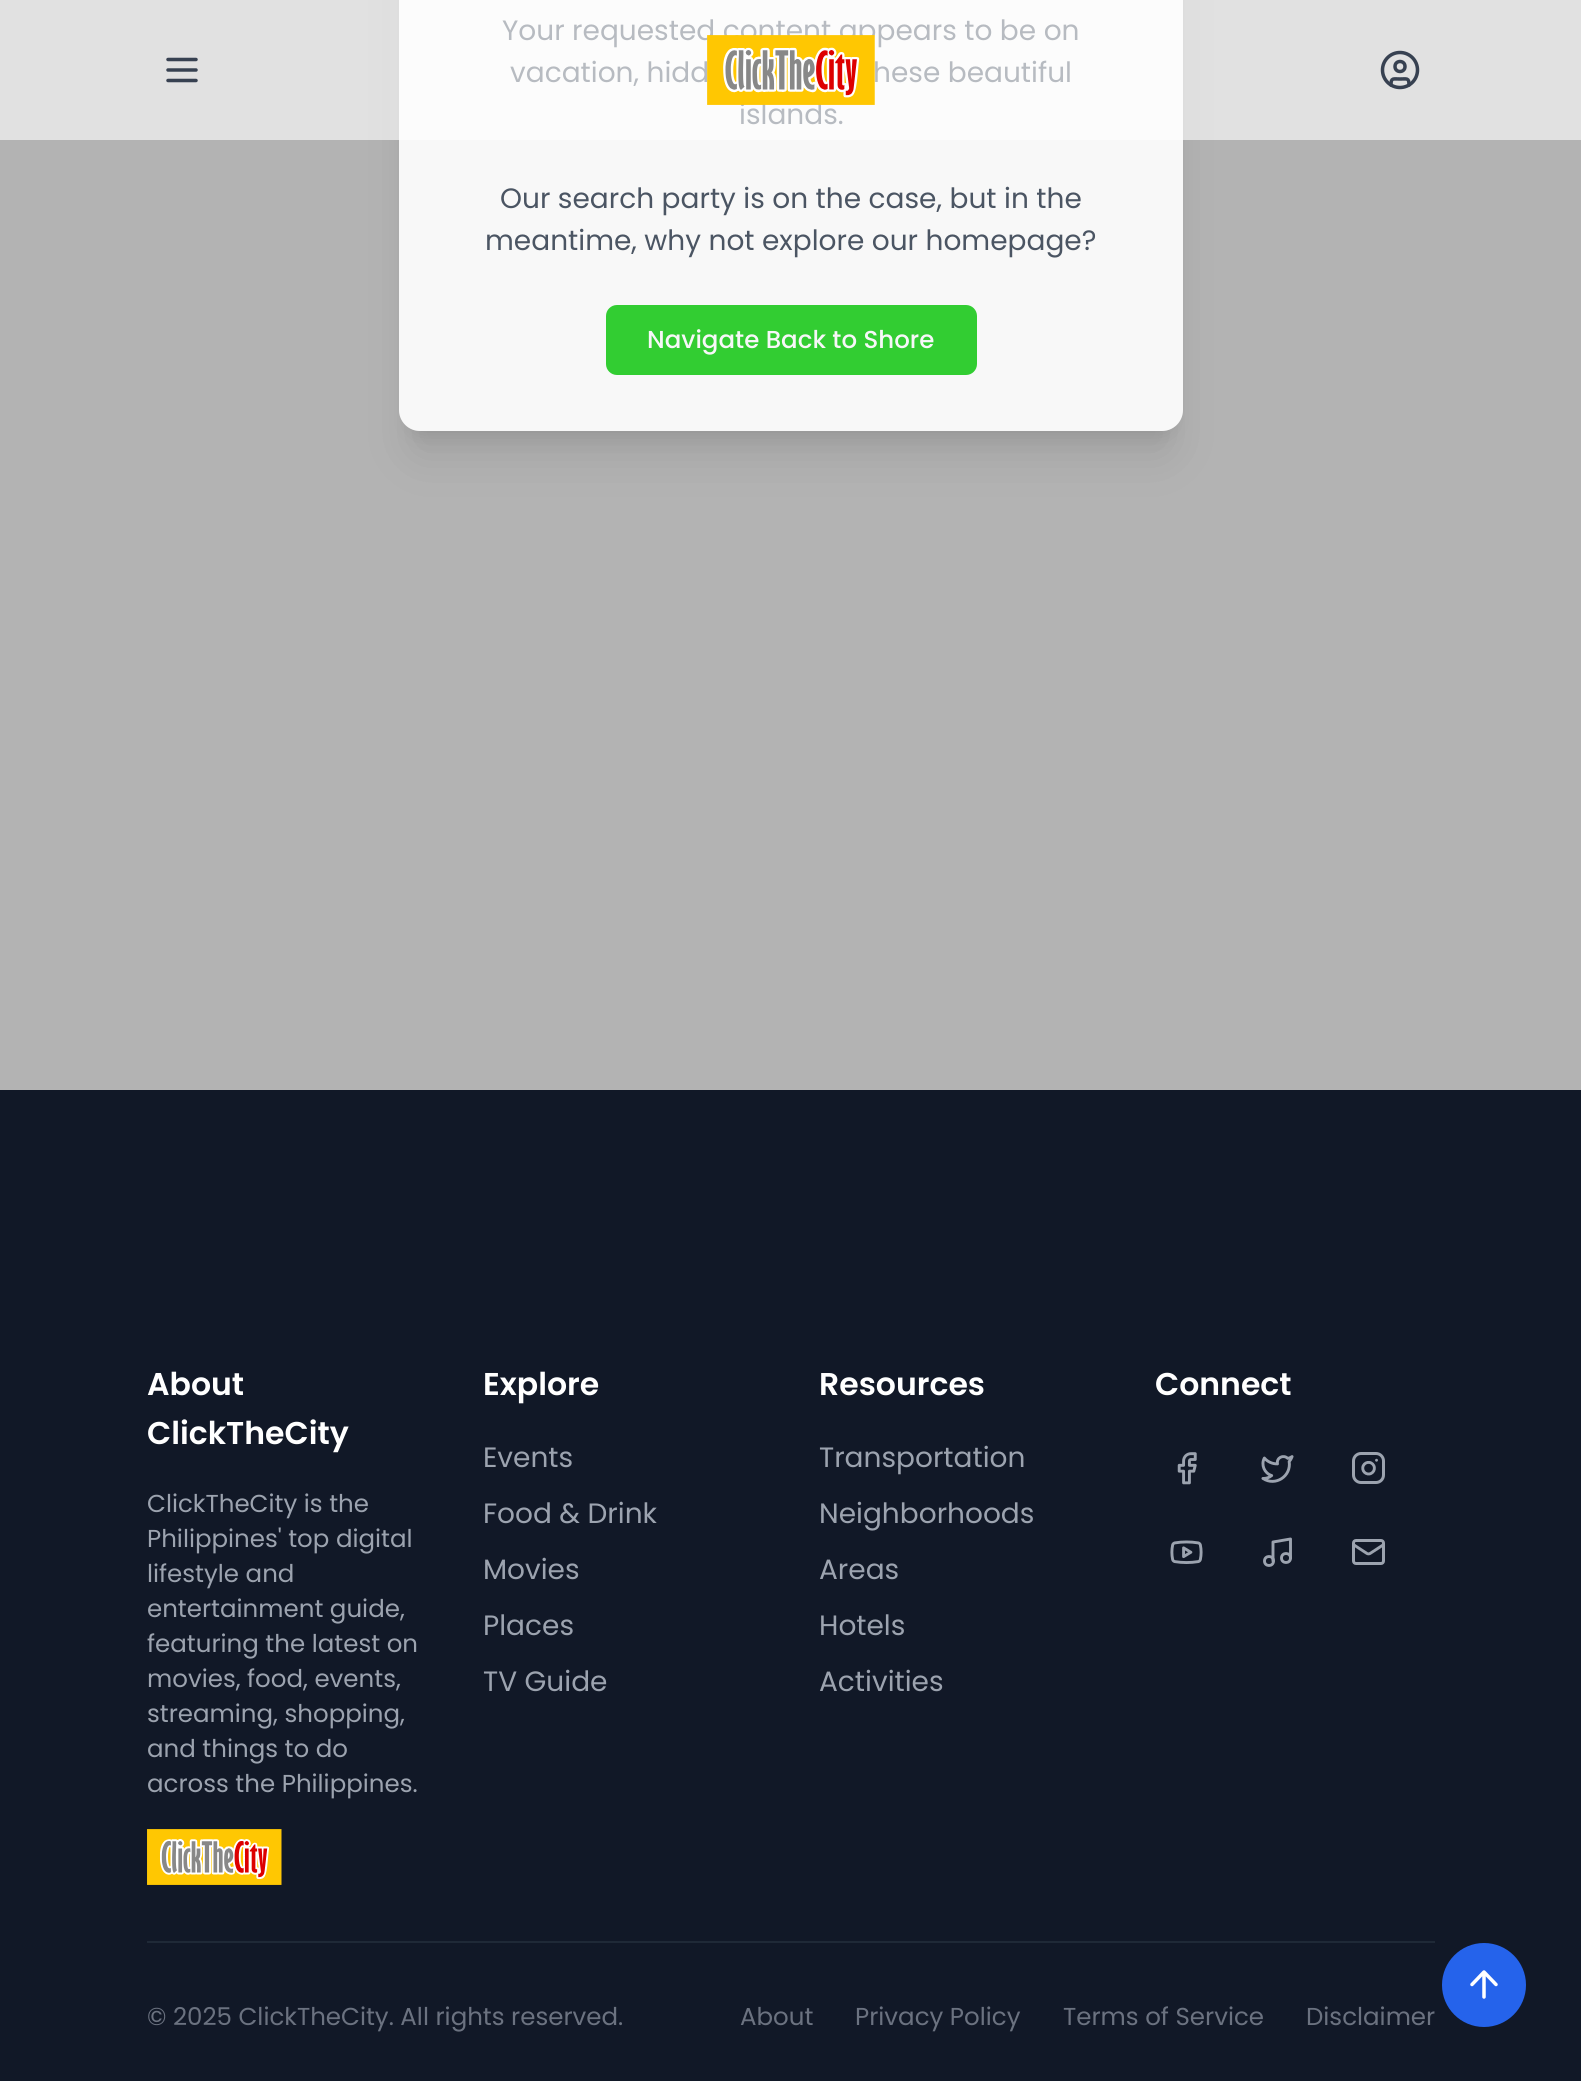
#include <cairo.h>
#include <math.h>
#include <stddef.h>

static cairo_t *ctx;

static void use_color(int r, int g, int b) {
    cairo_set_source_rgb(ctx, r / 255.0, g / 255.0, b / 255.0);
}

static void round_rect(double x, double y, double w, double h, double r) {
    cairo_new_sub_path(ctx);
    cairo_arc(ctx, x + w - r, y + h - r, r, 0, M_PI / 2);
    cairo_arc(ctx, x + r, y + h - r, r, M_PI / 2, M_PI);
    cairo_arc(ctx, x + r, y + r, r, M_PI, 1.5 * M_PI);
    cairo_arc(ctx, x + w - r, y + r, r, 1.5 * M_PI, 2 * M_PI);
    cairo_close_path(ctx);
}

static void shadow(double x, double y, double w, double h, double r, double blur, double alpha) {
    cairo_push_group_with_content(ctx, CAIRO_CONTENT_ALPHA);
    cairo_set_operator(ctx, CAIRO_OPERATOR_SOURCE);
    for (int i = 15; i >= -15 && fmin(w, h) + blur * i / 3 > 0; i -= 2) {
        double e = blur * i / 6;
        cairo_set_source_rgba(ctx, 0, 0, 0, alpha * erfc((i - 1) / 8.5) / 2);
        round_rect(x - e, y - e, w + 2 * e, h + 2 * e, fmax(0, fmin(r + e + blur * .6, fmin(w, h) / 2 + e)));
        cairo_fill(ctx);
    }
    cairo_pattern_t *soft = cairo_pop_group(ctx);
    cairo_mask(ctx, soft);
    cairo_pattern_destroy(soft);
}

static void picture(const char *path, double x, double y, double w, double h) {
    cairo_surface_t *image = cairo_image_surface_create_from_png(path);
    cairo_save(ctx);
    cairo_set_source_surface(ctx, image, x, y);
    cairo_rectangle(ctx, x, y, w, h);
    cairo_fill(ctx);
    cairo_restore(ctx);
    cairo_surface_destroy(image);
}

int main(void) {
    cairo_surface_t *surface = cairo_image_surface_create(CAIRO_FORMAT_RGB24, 1581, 2081);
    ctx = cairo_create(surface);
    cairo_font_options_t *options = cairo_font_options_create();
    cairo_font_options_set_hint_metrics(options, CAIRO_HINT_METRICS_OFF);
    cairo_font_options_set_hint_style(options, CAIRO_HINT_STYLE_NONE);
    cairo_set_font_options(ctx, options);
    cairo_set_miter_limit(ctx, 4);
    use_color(17, 24, 39);
    cairo_paint(ctx);
    use_color(179, 179, 179);
    cairo_rectangle(ctx, 0, 0, 1581, 1090);
    cairo_fill(ctx);
    cairo_save(ctx);
    cairo_set_fill_rule(ctx, CAIRO_FILL_RULE_EVEN_ODD);
    cairo_new_path(ctx);
    cairo_move_to(ctx, 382, 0);
    cairo_line_to(ctx, 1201, 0);
    cairo_line_to(ctx, 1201, 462);
    cairo_line_to(ctx, 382, 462);
    cairo_close_path(ctx);
    cairo_move_to(ctx, 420, -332);
    cairo_line_to(ctx, 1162, -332);
    cairo_curve_to(ctx, 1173.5, -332, 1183, -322.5, 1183, -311);
    cairo_line_to(ctx, 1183, 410);
    cairo_curve_to(ctx, 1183, 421.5, 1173.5, 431, 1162, 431);
    cairo_line_to(ctx, 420, 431);
    cairo_curve_to(ctx, 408.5, 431, 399, 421.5, 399, 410);
    cairo_line_to(ctx, 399, -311);
    cairo_curve_to(ctx, 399, -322.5, 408.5, -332, 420, -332);
    cairo_close_path(ctx);
    cairo_clip(ctx);
    use_color(0, 0, 0);
    shadow(410, -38, 763, 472, 11, 9, 0.1);
    cairo_restore(ctx);
    cairo_save(ctx);
    cairo_set_fill_rule(ctx, CAIRO_FILL_RULE_EVEN_ODD);
    cairo_new_path(ctx);
    cairo_move_to(ctx, 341, 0);
    cairo_line_to(ctx, 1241, 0);
    cairo_line_to(ctx, 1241, 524);
    cairo_line_to(ctx, 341, 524);
    cairo_close_path(ctx);
    cairo_move_to(ctx, 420, -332);
    cairo_line_to(ctx, 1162, -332);
    cairo_curve_to(ctx, 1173.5, -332, 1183, -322.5, 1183, -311);
    cairo_line_to(ctx, 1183, 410);
    cairo_curve_to(ctx, 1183, 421.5, 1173.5, 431, 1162, 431);
    cairo_line_to(ctx, 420, 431);
    cairo_curve_to(ctx, 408.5, 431, 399, 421.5, 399, 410);
    cairo_line_to(ctx, 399, -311);
    cairo_curve_to(ctx, 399, -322.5, 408.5, -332, 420, -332);
    cairo_close_path(ctx);
    cairo_clip(ctx);
    use_color(0, 0, 0);
    shadow(408, -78, 766, 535, 12, 22, 0.1);
    cairo_restore(ctx);
    cairo_set_source_rgba(ctx, 1, 1, 1, 0.9);
    round_rect(399, -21, 784, 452, 21);
    cairo_fill(ctx);
    cairo_select_font_face(ctx, "Poppins", CAIRO_FONT_SLANT_NORMAL, CAIRO_FONT_WEIGHT_NORMAL);
    cairo_set_font_size(ctx, 28);
    use_color(75, 85, 99);
    cairo_move_to(ctx, 502, 40);
    cairo_show_text(ctx, "Your requested content appears to be on");
    cairo_move_to(ctx, 510, 82);
    cairo_show_text(ctx, "vacation, hidd");
    cairo_move_to(ctx, 873, 82);
    cairo_show_text(ctx, "hese beautiful");
    cairo_move_to(ctx, 739, 124);
    cairo_show_text(ctx, "islands.");
    cairo_set_source_rgba(ctx, 1, 1, 1, 0.6);
    cairo_rectangle(ctx, 0, 0, 1581, 140);
    cairo_fill(ctx);
    cairo_new_path(ctx);
    cairo_move_to(ctx, 168, 70);
    cairo_line_to(ctx, 196, 70);
    cairo_move_to(ctx, 168, 59.5);
    cairo_line_to(ctx, 196, 59.5);
    cairo_move_to(ctx, 168, 80.5);
    cairo_line_to(ctx, 196, 80.5);
    use_color(55, 65, 81);
    cairo_set_line_width(ctx, 3.5);
    cairo_set_line_cap(ctx, CAIRO_LINE_CAP_ROUND);
    cairo_set_line_join(ctx, CAIRO_LINE_JOIN_ROUND);
    cairo_stroke(ctx);
    picture("img1.png", 707, 35, 168, 70);
    cairo_arc(ctx, 1400, 70, 17.5, 0, 2 * M_PI);
    cairo_set_line_cap(ctx, CAIRO_LINE_CAP_BUTT);
    cairo_set_line_join(ctx, CAIRO_LINE_JOIN_MITER);
    cairo_stroke(ctx);
    cairo_arc(ctx, 1400, 66.5, 5, 0, 2 * M_PI);
    cairo_stroke(ctx);
    cairo_new_path(ctx);
    cairo_move_to(ctx, 1391, 85);
    cairo_curve_to(ctx, 1391, 77.5, 1393, 79, 1400, 79);
    cairo_curve_to(ctx, 1407, 79, 1409, 77.5, 1409, 85);
    cairo_set_line_cap(ctx, CAIRO_LINE_CAP_ROUND);
    cairo_set_line_join(ctx, CAIRO_LINE_JOIN_ROUND);
    cairo_stroke(ctx);
    use_color(75, 85, 99);
    cairo_move_to(ctx, 500, 208);
    cairo_show_text(ctx, "Our search party is on the case, but in the");
    cairo_move_to(ctx, 485, 250);
    cairo_show_text(ctx, "meantime, why not explore our homepage?");
    use_color(50, 205, 50);
    round_rect(606, 305, 371, 70, 11);
    cairo_fill(ctx);
    cairo_select_font_face(ctx, "Poppins Medium", CAIRO_FONT_SLANT_NORMAL, CAIRO_FONT_WEIGHT_NORMAL);
    cairo_set_font_size(ctx, 24.5);
    use_color(247, 247, 248);
    cairo_move_to(ctx, 647, 348);
    cairo_show_text(ctx, "Navigate Back to Shore");
    cairo_select_font_face(ctx, "Poppins SemiBold", CAIRO_FONT_SLANT_NORMAL, CAIRO_FONT_WEIGHT_NORMAL);
    cairo_set_font_size(ctx, 31.5);
    use_color(255, 255, 255);
    cairo_move_to(ctx, 147, 1395);
    cairo_show_text(ctx, "About");
    cairo_move_to(ctx, 147, 1444);
    cairo_show_text(ctx, "ClickTheCity");
    cairo_select_font_face(ctx, "Poppins", CAIRO_FONT_SLANT_NORMAL, CAIRO_FONT_WEIGHT_NORMAL);
    cairo_set_font_size(ctx, 24.5);
    use_color(156, 163, 175);
    cairo_move_to(ctx, 147, 1512);
    cairo_show_text(ctx, "ClickTheCity is the");
    cairo_move_to(ctx, 147, 1547);
    cairo_show_text(ctx, "Philippines' top digital");
    cairo_move_to(ctx, 147, 1582);
    cairo_show_text(ctx, "lifestyle and");
    cairo_move_to(ctx, 147, 1617);
    cairo_show_text(ctx, "entertainment guide,");
    cairo_move_to(ctx, 147, 1652);
    cairo_show_text(ctx, "featuring the latest on");
    cairo_move_to(ctx, 147, 1687);
    cairo_show_text(ctx, "movies, food, events,");
    cairo_move_to(ctx, 147, 1722);
    cairo_show_text(ctx, "streaming, shopping,");
    cairo_move_to(ctx, 147, 1757);
    cairo_show_text(ctx, "and things to do");
    cairo_move_to(ctx, 147, 1792);
    cairo_show_text(ctx, "across the Philippines.");
    picture("img2.png", 147, 1829, 135, 56);
    cairo_select_font_face(ctx, "Poppins SemiBold", CAIRO_FONT_SLANT_NORMAL, CAIRO_FONT_WEIGHT_NORMAL);
    cairo_set_font_size(ctx, 31.5);
    use_color(255, 255, 255);
    cairo_move_to(ctx, 483, 1395);
    cairo_show_text(ctx, "Explore");
    cairo_select_font_face(ctx, "Poppins", CAIRO_FONT_SLANT_NORMAL, CAIRO_FONT_WEIGHT_NORMAL);
    cairo_set_font_size(ctx, 28);
    use_color(156, 163, 175);
    cairo_move_to(ctx, 483, 1467);
    cairo_show_text(ctx, "Events");
    cairo_move_to(ctx, 483, 1523);
    cairo_show_text(ctx, "Food & Drink");
    cairo_move_to(ctx, 483, 1579);
    cairo_show_text(ctx, "Movies");
    cairo_move_to(ctx, 483, 1635);
    cairo_show_text(ctx, "Places");
    cairo_move_to(ctx, 483, 1691);
    cairo_show_text(ctx, "TV Guide");
    cairo_select_font_face(ctx, "Poppins SemiBold", CAIRO_FONT_SLANT_NORMAL, CAIRO_FONT_WEIGHT_NORMAL);
    cairo_set_font_size(ctx, 31.5);
    use_color(255, 255, 255);
    cairo_move_to(ctx, 819, 1395);
    cairo_show_text(ctx, "Resources");
    cairo_select_font_face(ctx, "Poppins", CAIRO_FONT_SLANT_NORMAL, CAIRO_FONT_WEIGHT_NORMAL);
    cairo_set_font_size(ctx, 28);
    use_color(156, 163, 175);
    cairo_move_to(ctx, 819, 1467);
    cairo_show_text(ctx, "Transportation");
    cairo_move_to(ctx, 819, 1523);
    cairo_show_text(ctx, "Neighborhoods");
    cairo_move_to(ctx, 819, 1579);
    cairo_show_text(ctx, "Areas");
    cairo_move_to(ctx, 819, 1635);
    cairo_show_text(ctx, "Hotels");
    cairo_move_to(ctx, 819, 1691);
    cairo_show_text(ctx, "Activities");
    cairo_select_font_face(ctx, "Poppins SemiBold", CAIRO_FONT_SLANT_NORMAL, CAIRO_FONT_WEIGHT_NORMAL);
    cairo_set_font_size(ctx, 31.5);
    use_color(255, 255, 255);
    cairo_move_to(ctx, 1155, 1395);
    cairo_show_text(ctx, "Connect");
    picture("img3.png", 1177, 1452, 20, 33);
    picture("img4.png", 1261, 1455, 33, 28);
    picture("img5.png", 1352, 1452, 33, 32);
    picture("img6.png", 1170, 1540, 33, 24);
    cairo_new_path(ctx);
    cairo_move_to(ctx, 1273, 1561);
    cairo_line_to(ctx, 1273, 1542);
    cairo_line_to(ctx, 1290.5, 1539);
    cairo_line_to(ctx, 1290.5, 1558);
    use_color(156, 163, 175);
    cairo_set_line_width(ctx, 2.9);
    cairo_stroke(ctx);
    cairo_arc(ctx, 1269, 1561, 4.5, 0, 2 * M_PI);
    cairo_set_line_cap(ctx, CAIRO_LINE_CAP_BUTT);
    cairo_set_line_join(ctx, CAIRO_LINE_JOIN_MITER);
    cairo_stroke(ctx);
    cairo_arc(ctx, 1286, 1558, 4.5, 0, 2 * M_PI);
    cairo_stroke(ctx);
    round_rect(1353.5, 1540.5, 30, 23, 2.5);
    cairo_set_line_width(ctx, 3);
    cairo_stroke(ctx);
    cairo_new_path(ctx);
    cairo_move_to(ctx, 1383, 1545);
    cairo_line_to(ctx, 1370, 1553.5);
    cairo_curve_to(ctx, 1369, 1554, 1368, 1554, 1367, 1553.5);
    cairo_line_to(ctx, 1354, 1545);
    cairo_set_line_width(ctx, 2.9);
    cairo_set_line_cap(ctx, CAIRO_LINE_CAP_ROUND);
    cairo_set_line_join(ctx, CAIRO_LINE_JOIN_ROUND);
    cairo_stroke(ctx);
    use_color(31, 41, 55);
    cairo_rectangle(ctx, 147, 1941, 1288, 2);
    cairo_fill(ctx);
    cairo_select_font_face(ctx, "Poppins", CAIRO_FONT_SLANT_NORMAL, CAIRO_FONT_WEIGHT_NORMAL);
    cairo_set_font_size(ctx, 24.5);
    use_color(107, 114, 128);
    cairo_move_to(ctx, 147, 2025);
    cairo_show_text(ctx, "© 2025 ClickTheCity. All rights reserved.");
    cairo_move_to(ctx, 740, 2025);
    cairo_show_text(ctx, "About");
    cairo_move_to(ctx, 855, 2025);
    cairo_show_text(ctx, "Privacy Policy");
    cairo_move_to(ctx, 1063, 2025);
    cairo_show_text(ctx, "Terms of Service");
    cairo_move_to(ctx, 1306, 2025);
    cairo_show_text(ctx, "Disclaimer");
    use_color(37, 99, 235);
    cairo_new_path(ctx);
    cairo_arc(ctx, 1484, 1985, 42, 0, 2 * M_PI);
    cairo_fill(ctx);
    cairo_new_path(ctx);
    cairo_move_to(ctx, 1472, 1984.5);
    cairo_line_to(ctx, 1484, 1972);
    cairo_line_to(ctx, 1496, 1984.5);
    cairo_move_to(ctx, 1484, 1997);
    cairo_line_to(ctx, 1484, 1972);
    use_color(255, 255, 255);
    cairo_set_line_width(ctx, 3.5);
    cairo_stroke(ctx);
    cairo_surface_write_to_png(surface, "result.png");
    cairo_font_options_destroy(options);
    cairo_destroy(ctx);
    cairo_surface_destroy(surface);
    return 0;
}
